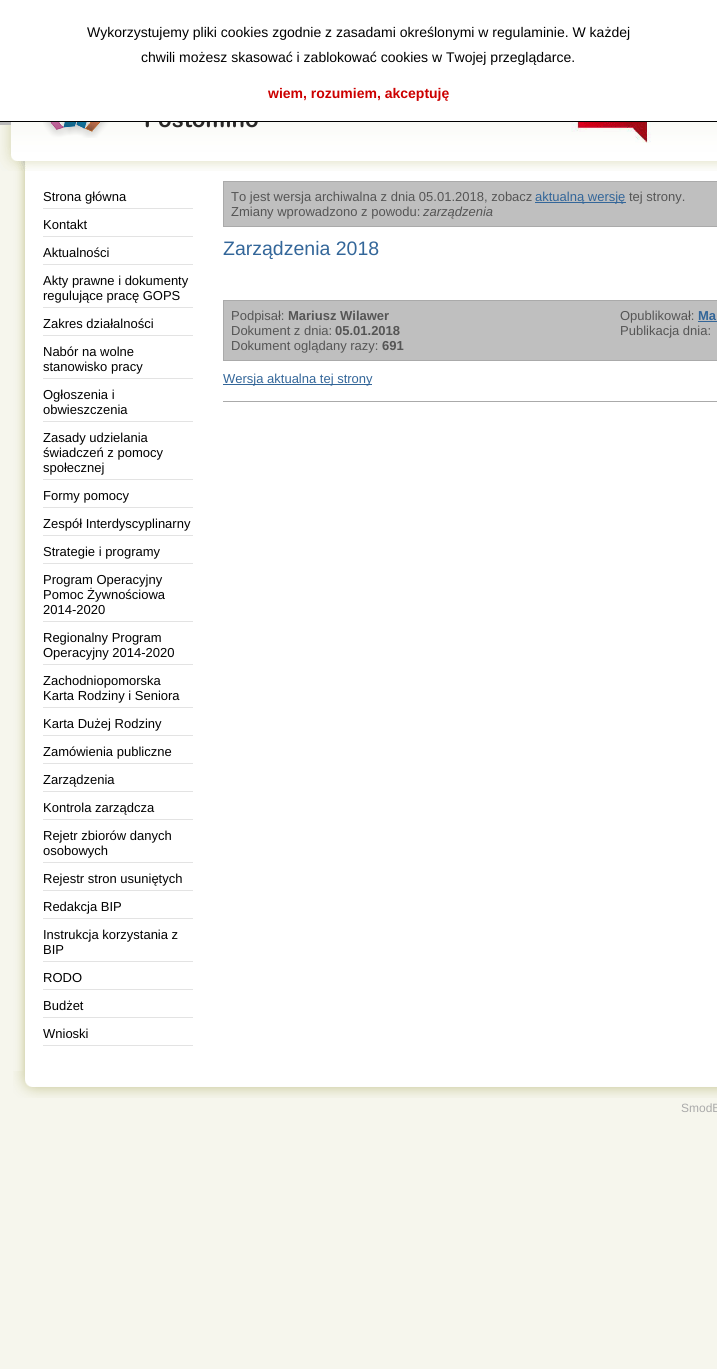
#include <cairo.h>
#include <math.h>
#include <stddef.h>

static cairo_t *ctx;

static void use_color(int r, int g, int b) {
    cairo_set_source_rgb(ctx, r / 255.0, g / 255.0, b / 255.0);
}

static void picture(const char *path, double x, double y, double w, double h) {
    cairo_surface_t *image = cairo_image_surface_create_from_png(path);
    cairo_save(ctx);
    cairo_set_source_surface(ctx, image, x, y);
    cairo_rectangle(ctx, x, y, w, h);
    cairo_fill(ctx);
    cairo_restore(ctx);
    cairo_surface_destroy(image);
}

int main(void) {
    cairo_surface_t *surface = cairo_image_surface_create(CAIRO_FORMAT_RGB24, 717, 1369);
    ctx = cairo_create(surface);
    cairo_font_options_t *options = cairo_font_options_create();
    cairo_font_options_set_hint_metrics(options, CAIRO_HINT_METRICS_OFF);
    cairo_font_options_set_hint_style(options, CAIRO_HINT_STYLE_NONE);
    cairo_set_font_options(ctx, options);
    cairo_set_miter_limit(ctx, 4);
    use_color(246, 246, 237);
    cairo_paint(ctx);
    use_color(255, 255, 255);
    cairo_rectangle(ctx, 0, 0, 717, 121);
    cairo_fill(ctx);
    use_color(0, 0, 0);
    cairo_rectangle(ctx, 0, 121, 717, 1);
    cairo_fill(ctx);
    cairo_select_font_face(ctx, "Liberation Sans", CAIRO_FONT_SLANT_NORMAL, CAIRO_FONT_WEIGHT_NORMAL);
    cairo_set_font_size(ctx, 14);
    cairo_move_to(ctx, 87, 37);
    cairo_show_text(ctx, "Wykorzystujemy pliki cookies zgodnie z zasadami określonymi w regulaminie. W każdej");
    cairo_move_to(ctx, 141, 62);
    cairo_show_text(ctx, "chwili możesz skasować i zablokować cookies w Twojej przeglądarce.");
    cairo_select_font_face(ctx, "Liberation Sans", CAIRO_FONT_SLANT_NORMAL, CAIRO_FONT_WEIGHT_BOLD);
    use_color(204, 0, 0);
    cairo_move_to(ctx, 268, 98);
    cairo_show_text(ctx, "wiem, rozumiem, akceptuję");
    picture("img1.png", 0, 171, 717, 927);
    picture("img2.png", 0, 122, 717, 49);
    picture("img3.png", 43, 122, 215, 16);
    use_color(227, 227, 227);
    cairo_rectangle(ctx, 43, 208, 150, 1);
    cairo_fill(ctx);
    cairo_select_font_face(ctx, "Liberation Sans", CAIRO_FONT_SLANT_NORMAL, CAIRO_FONT_WEIGHT_NORMAL);
    cairo_set_font_size(ctx, 13);
    use_color(0, 0, 0);
    cairo_move_to(ctx, 43, 201);
    cairo_show_text(ctx, "Strona główna");
    use_color(227, 227, 227);
    cairo_rectangle(ctx, 43, 236, 150, 1);
    cairo_fill(ctx);
    use_color(0, 0, 0);
    cairo_move_to(ctx, 43, 229);
    cairo_show_text(ctx, "Kontakt");
    use_color(227, 227, 227);
    cairo_rectangle(ctx, 43, 264, 150, 1);
    cairo_fill(ctx);
    use_color(0, 0, 0);
    cairo_move_to(ctx, 43, 257);
    cairo_show_text(ctx, "Aktualności");
    use_color(227, 227, 227);
    cairo_rectangle(ctx, 43, 307, 150, 1);
    cairo_fill(ctx);
    use_color(0, 0, 0);
    cairo_move_to(ctx, 43, 285);
    cairo_show_text(ctx, "Akty prawne i dokumenty");
    cairo_move_to(ctx, 43, 300);
    cairo_show_text(ctx, "regulujące pracę GOPS");
    use_color(227, 227, 227);
    cairo_rectangle(ctx, 43, 335, 150, 1);
    cairo_fill(ctx);
    use_color(0, 0, 0);
    cairo_move_to(ctx, 43, 328);
    cairo_show_text(ctx, "Zakres działalności");
    use_color(227, 227, 227);
    cairo_rectangle(ctx, 43, 378, 150, 1);
    cairo_fill(ctx);
    use_color(0, 0, 0);
    cairo_move_to(ctx, 43, 356);
    cairo_show_text(ctx, "Nabór na wolne");
    cairo_move_to(ctx, 43, 371);
    cairo_show_text(ctx, "stanowisko pracy");
    use_color(227, 227, 227);
    cairo_rectangle(ctx, 43, 421, 150, 1);
    cairo_fill(ctx);
    use_color(0, 0, 0);
    cairo_move_to(ctx, 43, 399);
    cairo_show_text(ctx, "Ogłoszenia i");
    cairo_move_to(ctx, 43, 414);
    cairo_show_text(ctx, "obwieszczenia");
    use_color(227, 227, 227);
    cairo_rectangle(ctx, 43, 479, 150, 1);
    cairo_fill(ctx);
    use_color(0, 0, 0);
    cairo_move_to(ctx, 43, 442);
    cairo_show_text(ctx, "Zasady udzielania");
    cairo_move_to(ctx, 43, 457);
    cairo_show_text(ctx, "świadczeń z pomocy");
    cairo_move_to(ctx, 43, 472);
    cairo_show_text(ctx, "społecznej");
    use_color(227, 227, 227);
    cairo_rectangle(ctx, 43, 507, 150, 1);
    cairo_fill(ctx);
    use_color(0, 0, 0);
    cairo_move_to(ctx, 43, 500);
    cairo_show_text(ctx, "Formy pomocy");
    use_color(227, 227, 227);
    cairo_rectangle(ctx, 43, 535, 150, 1);
    cairo_fill(ctx);
    use_color(0, 0, 0);
    cairo_move_to(ctx, 43, 528);
    cairo_show_text(ctx, "Zespół Interdyscyplinarny");
    use_color(227, 227, 227);
    cairo_rectangle(ctx, 43, 563, 150, 1);
    cairo_fill(ctx);
    use_color(0, 0, 0);
    cairo_move_to(ctx, 43, 556);
    cairo_show_text(ctx, "Strategie i programy");
    use_color(227, 227, 227);
    cairo_rectangle(ctx, 43, 621, 150, 1);
    cairo_fill(ctx);
    use_color(0, 0, 0);
    cairo_move_to(ctx, 43, 584);
    cairo_show_text(ctx, "Program Operacyjny");
    cairo_move_to(ctx, 43, 599);
    cairo_show_text(ctx, "Pomoc Żywnościowa");
    cairo_move_to(ctx, 43, 614);
    cairo_show_text(ctx, "2014-2020");
    use_color(227, 227, 227);
    cairo_rectangle(ctx, 43, 664, 150, 1);
    cairo_fill(ctx);
    use_color(0, 0, 0);
    cairo_move_to(ctx, 43, 642);
    cairo_show_text(ctx, "Regionalny Program");
    cairo_move_to(ctx, 43, 657);
    cairo_show_text(ctx, "Operacyjny 2014-2020");
    use_color(227, 227, 227);
    cairo_rectangle(ctx, 43, 707, 150, 1);
    cairo_fill(ctx);
    use_color(0, 0, 0);
    cairo_move_to(ctx, 43, 685);
    cairo_show_text(ctx, "Zachodniopomorska");
    cairo_move_to(ctx, 43, 700);
    cairo_show_text(ctx, "Karta Rodziny i Seniora");
    use_color(227, 227, 227);
    cairo_rectangle(ctx, 43, 735, 150, 1);
    cairo_fill(ctx);
    use_color(0, 0, 0);
    cairo_move_to(ctx, 43, 728);
    cairo_show_text(ctx, "Karta Dużej Rodziny");
    use_color(227, 227, 227);
    cairo_rectangle(ctx, 43, 763, 150, 1);
    cairo_fill(ctx);
    use_color(0, 0, 0);
    cairo_move_to(ctx, 43, 756);
    cairo_show_text(ctx, "Zamówienia publiczne");
    use_color(227, 227, 227);
    cairo_rectangle(ctx, 43, 791, 150, 1);
    cairo_fill(ctx);
    use_color(0, 0, 0);
    cairo_move_to(ctx, 43, 784);
    cairo_show_text(ctx, "Zarządzenia");
    use_color(227, 227, 227);
    cairo_rectangle(ctx, 43, 819, 150, 1);
    cairo_fill(ctx);
    use_color(0, 0, 0);
    cairo_move_to(ctx, 43, 812);
    cairo_show_text(ctx, "Kontrola zarządcza");
    use_color(227, 227, 227);
    cairo_rectangle(ctx, 43, 862, 150, 1);
    cairo_fill(ctx);
    use_color(0, 0, 0);
    cairo_move_to(ctx, 43, 840);
    cairo_show_text(ctx, "Rejetr zbiorów danych");
    cairo_move_to(ctx, 43, 855);
    cairo_show_text(ctx, "osobowych");
    use_color(227, 227, 227);
    cairo_rectangle(ctx, 43, 890, 150, 1);
    cairo_fill(ctx);
    use_color(0, 0, 0);
    cairo_move_to(ctx, 43, 883);
    cairo_show_text(ctx, "Rejestr stron usuniętych");
    use_color(227, 227, 227);
    cairo_rectangle(ctx, 43, 918, 150, 1);
    cairo_fill(ctx);
    use_color(0, 0, 0);
    cairo_move_to(ctx, 43, 911);
    cairo_show_text(ctx, "Redakcja BIP");
    use_color(227, 227, 227);
    cairo_rectangle(ctx, 43, 961, 150, 1);
    cairo_fill(ctx);
    use_color(0, 0, 0);
    cairo_move_to(ctx, 43, 939);
    cairo_show_text(ctx, "Instrukcja korzystania z");
    cairo_move_to(ctx, 43, 954);
    cairo_show_text(ctx, "BIP");
    use_color(227, 227, 227);
    cairo_rectangle(ctx, 43, 989, 150, 1);
    cairo_fill(ctx);
    use_color(0, 0, 0);
    cairo_move_to(ctx, 43, 982);
    cairo_show_text(ctx, "RODO");
    use_color(227, 227, 227);
    cairo_rectangle(ctx, 43, 1017, 150, 1);
    cairo_fill(ctx);
    use_color(0, 0, 0);
    cairo_move_to(ctx, 43, 1010);
    cairo_show_text(ctx, "Budżet");
    use_color(227, 227, 227);
    cairo_rectangle(ctx, 43, 1045, 150, 1);
    cairo_fill(ctx);
    use_color(0, 0, 0);
    cairo_move_to(ctx, 43, 1038);
    cairo_show_text(ctx, "Wnioski");
    use_color(191, 191, 191);
    cairo_rectangle(ctx, 223.5, 181.5, 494, 45);
    cairo_fill_preserve(ctx);
    use_color(170, 170, 170);
    cairo_set_line_width(ctx, 1);
    cairo_stroke(ctx);
    use_color(85, 85, 85);
    cairo_move_to(ctx, 231, 201);
    cairo_show_text(ctx, "To jest wersja archiwalna z dnia 05.01.2018, zobacz");
    use_color(51, 102, 153);
    cairo_rectangle(ctx, 535, 202, 91, 1);
    cairo_fill(ctx);
    cairo_move_to(ctx, 535, 201);
    cairo_show_text(ctx, "aktualną wersję");
    use_color(85, 85, 85);
    cairo_move_to(ctx, 629, 201);
    cairo_show_text(ctx, "tej strony.");
    cairo_move_to(ctx, 231, 216);
    cairo_show_text(ctx, "Zmiany wprowadzono z powodu:");
    cairo_select_font_face(ctx, "Liberation Sans", CAIRO_FONT_SLANT_ITALIC, CAIRO_FONT_WEIGHT_NORMAL);
    cairo_move_to(ctx, 423, 216);
    cairo_show_text(ctx, "zarządzenia");
    cairo_select_font_face(ctx, "Liberation Sans", CAIRO_FONT_SLANT_NORMAL, CAIRO_FONT_WEIGHT_NORMAL);
    cairo_set_font_size(ctx, 19.5);
    use_color(51, 102, 153);
    cairo_move_to(ctx, 223, 255);
    cairo_show_text(ctx, "Zarządzenia 2018");
    use_color(191, 191, 191);
    cairo_rectangle(ctx, 223.5, 300.5, 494, 60);
    cairo_fill_preserve(ctx);
    use_color(170, 170, 170);
    cairo_stroke(ctx);
    cairo_set_font_size(ctx, 13);
    use_color(85, 85, 85);
    cairo_move_to(ctx, 231, 320);
    cairo_show_text(ctx, "Podpisał:");
    cairo_select_font_face(ctx, "Liberation Sans", CAIRO_FONT_SLANT_NORMAL, CAIRO_FONT_WEIGHT_BOLD);
    cairo_move_to(ctx, 288, 320);
    cairo_show_text(ctx, "Mariusz Wilawer");
    cairo_select_font_face(ctx, "Liberation Sans", CAIRO_FONT_SLANT_NORMAL, CAIRO_FONT_WEIGHT_NORMAL);
    cairo_move_to(ctx, 620, 320);
    cairo_show_text(ctx, "Opublikował:");
    cairo_select_font_face(ctx, "Liberation Sans", CAIRO_FONT_SLANT_NORMAL, CAIRO_FONT_WEIGHT_BOLD);
    use_color(51, 102, 153);
    cairo_move_to(ctx, 698, 320);
    cairo_show_text(ctx, "Ma");
    cairo_rectangle(ctx, 698, 321, 19, 1);
    cairo_fill(ctx);
    cairo_select_font_face(ctx, "Liberation Sans", CAIRO_FONT_SLANT_NORMAL, CAIRO_FONT_WEIGHT_NORMAL);
    use_color(85, 85, 85);
    cairo_move_to(ctx, 620, 335);
    cairo_show_text(ctx, "Publikacja dnia:");
    cairo_move_to(ctx, 231, 335);
    cairo_show_text(ctx, "Dokument z dnia:");
    cairo_select_font_face(ctx, "Liberation Sans", CAIRO_FONT_SLANT_NORMAL, CAIRO_FONT_WEIGHT_BOLD);
    cairo_move_to(ctx, 335, 335);
    cairo_show_text(ctx, "05.01.2018");
    cairo_select_font_face(ctx, "Liberation Sans", CAIRO_FONT_SLANT_NORMAL, CAIRO_FONT_WEIGHT_NORMAL);
    cairo_move_to(ctx, 231, 350);
    cairo_show_text(ctx, "Dokument oglądany razy:");
    cairo_select_font_face(ctx, "Liberation Sans", CAIRO_FONT_SLANT_NORMAL, CAIRO_FONT_WEIGHT_BOLD);
    cairo_move_to(ctx, 382, 350);
    cairo_show_text(ctx, "691");
    use_color(170, 170, 170);
    cairo_rectangle(ctx, 223, 401, 494, 1);
    cairo_fill(ctx);
    use_color(51, 102, 153);
    cairo_rectangle(ctx, 223, 384, 149, 1);
    cairo_fill(ctx);
    cairo_select_font_face(ctx, "Liberation Sans", CAIRO_FONT_SLANT_NORMAL, CAIRO_FONT_WEIGHT_NORMAL);
    cairo_move_to(ctx, 223, 383);
    cairo_show_text(ctx, "Wersja aktualna tej strony");
    picture("img4.png", 13, 1071, 704, 27);
    cairo_set_font_size(ctx, 12);
    use_color(170, 170, 170);
    cairo_move_to(ctx, 681, 1112);
    cairo_show_text(ctx, "SmodB");
    cairo_surface_write_to_png(surface, "result.png");
    cairo_font_options_destroy(options);
    cairo_destroy(ctx);
    cairo_surface_destroy(surface);
    return 0;
}
